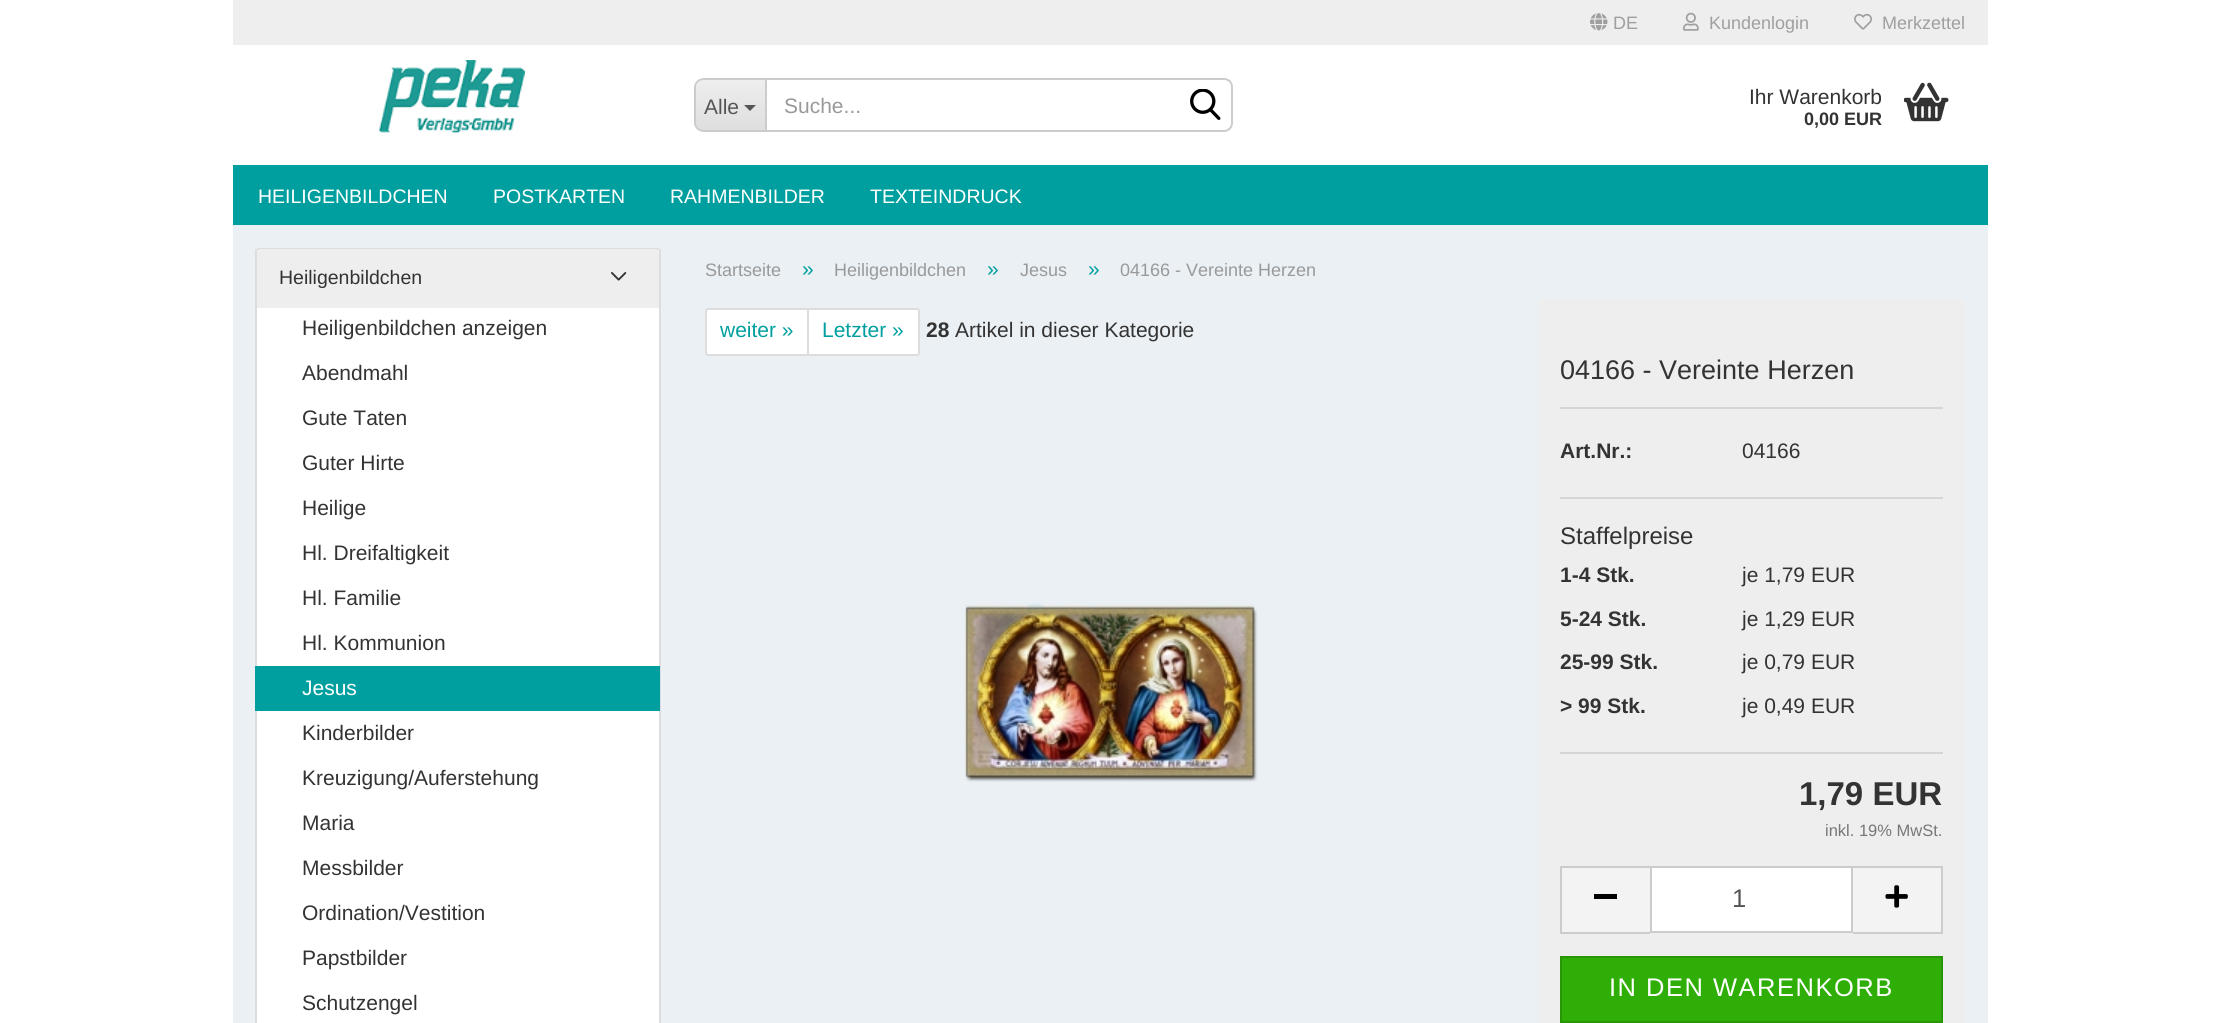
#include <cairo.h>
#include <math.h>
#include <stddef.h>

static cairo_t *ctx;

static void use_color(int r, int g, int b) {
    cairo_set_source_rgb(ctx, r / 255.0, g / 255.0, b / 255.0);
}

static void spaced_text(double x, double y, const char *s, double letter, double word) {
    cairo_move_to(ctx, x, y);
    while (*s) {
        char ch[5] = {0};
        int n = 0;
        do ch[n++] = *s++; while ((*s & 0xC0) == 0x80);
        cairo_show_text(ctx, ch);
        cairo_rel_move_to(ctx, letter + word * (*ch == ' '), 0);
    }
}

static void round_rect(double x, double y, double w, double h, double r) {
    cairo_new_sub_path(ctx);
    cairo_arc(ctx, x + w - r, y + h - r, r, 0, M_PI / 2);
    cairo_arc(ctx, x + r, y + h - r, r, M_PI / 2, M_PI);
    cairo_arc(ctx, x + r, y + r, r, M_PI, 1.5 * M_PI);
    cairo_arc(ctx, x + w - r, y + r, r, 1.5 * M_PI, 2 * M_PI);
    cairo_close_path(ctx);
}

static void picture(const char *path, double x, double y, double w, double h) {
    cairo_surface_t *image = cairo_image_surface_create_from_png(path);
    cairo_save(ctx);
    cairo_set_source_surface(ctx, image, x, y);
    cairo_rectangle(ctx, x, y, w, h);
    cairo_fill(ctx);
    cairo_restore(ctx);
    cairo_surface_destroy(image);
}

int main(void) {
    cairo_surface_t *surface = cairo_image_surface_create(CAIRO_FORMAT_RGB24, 2220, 1023);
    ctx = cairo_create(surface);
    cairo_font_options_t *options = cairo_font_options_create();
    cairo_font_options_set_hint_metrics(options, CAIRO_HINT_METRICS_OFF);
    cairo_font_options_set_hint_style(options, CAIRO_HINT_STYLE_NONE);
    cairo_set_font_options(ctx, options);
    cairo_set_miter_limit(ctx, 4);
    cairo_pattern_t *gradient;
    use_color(255, 255, 255);
    cairo_paint(ctx);
    use_color(235, 240, 244);
    cairo_rectangle(ctx, 233, 225, 1755, 798);
    cairo_fill(ctx);
    use_color(238, 238, 238);
    cairo_rectangle(ctx, 233, 0, 1755, 45);
    cairo_fill(ctx);
    picture("img1.png", 1590, 13, 18, 18);
    cairo_select_font_face(ctx, "Liberation Sans", CAIRO_FONT_SLANT_NORMAL, CAIRO_FONT_WEIGHT_NORMAL);
    cairo_set_font_size(ctx, 18);
    use_color(159, 159, 159);
    cairo_move_to(ctx, 1613, 29);
    cairo_show_text(ctx, "DE");
    picture("img2.png", 1683, 12, 16, 19);
    cairo_move_to(ctx, 1709, 29);
    cairo_show_text(ctx, "Kundenlogin");
    picture("img3.png", 1854, 13, 18, 17);
    cairo_move_to(ctx, 1882, 29);
    cairo_show_text(ctx, "Merkzettel");
    picture("img4.png", 379, 60, 146, 73);
    cairo_save(ctx);
    cairo_new_path(ctx);
    cairo_move_to(ctx, 704, 78);
    cairo_line_to(ctx, 765, 78);
    cairo_line_to(ctx, 765, 132);
    cairo_line_to(ctx, 704, 132);
    cairo_curve_to(ctx, 699, 132, 695, 128, 695, 123);
    cairo_line_to(ctx, 695, 87);
    cairo_curve_to(ctx, 695, 82, 699, 78, 704, 78);
    cairo_close_path(ctx);
    cairo_clip(ctx);
    gradient = cairo_pattern_create_linear(731, 80, 731, 131);
    cairo_pattern_add_color_stop_rgba(gradient, 0, 0.933, 0.933, 0.933, 1);
    cairo_pattern_add_color_stop_rgba(gradient, 1, 0.871, 0.871, 0.871, 1);
    cairo_set_source(ctx, gradient);
    cairo_pattern_destroy(gradient);
    cairo_rectangle(ctx, 695, 80, 70, 51);
    cairo_fill(ctx);
    cairo_restore(ctx);
    use_color(204, 204, 204);
    cairo_set_fill_rule(ctx, CAIRO_FILL_RULE_EVEN_ODD);
    cairo_new_path(ctx);
    cairo_move_to(ctx, 704, 78);
    cairo_line_to(ctx, 765, 78);
    cairo_line_to(ctx, 765, 132);
    cairo_line_to(ctx, 704, 132);
    cairo_curve_to(ctx, 699, 132, 694, 128, 694, 123);
    cairo_line_to(ctx, 694, 87);
    cairo_curve_to(ctx, 694, 82, 699, 78, 704, 78);
    cairo_close_path(ctx);
    cairo_move_to(ctx, 704, 80);
    cairo_line_to(ctx, 765, 80);
    cairo_line_to(ctx, 765, 130);
    cairo_line_to(ctx, 704, 130);
    cairo_curve_to(ctx, 699, 130, 696, 127, 696, 123);
    cairo_line_to(ctx, 696, 87);
    cairo_curve_to(ctx, 696, 83, 699, 80, 704, 80);
    cairo_close_path(ctx);
    cairo_fill(ctx);
    cairo_set_font_size(ctx, 21);
    use_color(85, 85, 85);
    cairo_move_to(ctx, 704, 114);
    cairo_show_text(ctx, "Alle");
    cairo_set_fill_rule(ctx, CAIRO_FILL_RULE_WINDING);
    cairo_new_path(ctx);
    cairo_move_to(ctx, 744, 105);
    cairo_line_to(ctx, 756, 105);
    cairo_line_to(ctx, 750, 111);
    cairo_close_path(ctx);
    cairo_fill(ctx);
    cairo_new_path(ctx);
    cairo_move_to(ctx, 766, 79);
    cairo_line_to(ctx, 1224, 79);
    cairo_curve_to(ctx, 1228.5, 79, 1232, 82.5, 1232, 87);
    cairo_line_to(ctx, 1232, 123);
    cairo_curve_to(ctx, 1232, 127.5, 1228.5, 131, 1224, 131);
    cairo_line_to(ctx, 766, 131);
    cairo_close_path(ctx);
    use_color(204, 204, 204);
    cairo_stroke(ctx);
    use_color(153, 153, 153);
    cairo_move_to(ctx, 784, 113);
    cairo_show_text(ctx, "Suche...");
    picture("img5.png", 1190, 89, 31, 31);
    use_color(51, 51, 51);
    cairo_move_to(ctx, 1749, 104);
    cairo_show_text(ctx, "Ihr Warenkorb");
    cairo_select_font_face(ctx, "Liberation Sans", CAIRO_FONT_SLANT_NORMAL, CAIRO_FONT_WEIGHT_BOLD);
    cairo_set_font_size(ctx, 18);
    cairo_move_to(ctx, 1804, 125);
    cairo_show_text(ctx, "0,00 EUR");
    picture("img6.png", 1904, 82, 45, 40);
    use_color(0, 159, 159);
    cairo_rectangle(ctx, 233, 165, 1755, 60);
    cairo_fill(ctx);
    cairo_select_font_face(ctx, "Liberation Sans", CAIRO_FONT_SLANT_NORMAL, CAIRO_FONT_WEIGHT_NORMAL);
    cairo_set_font_size(ctx, 19.5);
    use_color(255, 255, 255);
    cairo_move_to(ctx, 258, 203);
    cairo_show_text(ctx, "HEILIGENBILDCHEN");
    cairo_move_to(ctx, 493, 203);
    cairo_show_text(ctx, "POSTKARTEN");
    cairo_move_to(ctx, 670, 203);
    cairo_show_text(ctx, "RAHMENBILDER");
    cairo_move_to(ctx, 870, 203);
    cairo_show_text(ctx, "TEXTEINDRUCK");
    round_rect(255, 248, 405, 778, 3);
    cairo_fill(ctx);
    use_color(221, 221, 221);
    cairo_rectangle(ctx, 257, 248, 402, 2);
    cairo_fill(ctx);
    cairo_rectangle(ctx, 659, 249, 2, 774);
    cairo_fill(ctx);
    cairo_rectangle(ctx, 255, 249, 2, 774);
    cairo_fill(ctx);
    use_color(238, 238, 238);
    cairo_new_path(ctx);
    cairo_move_to(ctx, 260, 249);
    cairo_line_to(ctx, 656, 249);
    cairo_curve_to(ctx, 657.5, 249, 659, 250.5, 659, 252);
    cairo_line_to(ctx, 659, 308);
    cairo_line_to(ctx, 257, 308);
    cairo_line_to(ctx, 257, 252);
    cairo_curve_to(ctx, 257, 250.5, 258.5, 249, 260, 249);
    cairo_close_path(ctx);
    cairo_fill(ctx);
    use_color(51, 51, 51);
    cairo_move_to(ctx, 279, 284);
    cairo_show_text(ctx, "Heiligenbildchen");
    picture("img7.png", 611, 272, 16, 9);
    cairo_set_font_size(ctx, 21);
    cairo_move_to(ctx, 302, 335);
    cairo_show_text(ctx, "Heiligenbildchen anzeigen");
    cairo_move_to(ctx, 302, 380);
    cairo_show_text(ctx, "Abendmahl");
    cairo_move_to(ctx, 302, 425);
    cairo_show_text(ctx, "Gute Taten");
    cairo_move_to(ctx, 302, 470);
    cairo_show_text(ctx, "Guter Hirte");
    cairo_move_to(ctx, 302, 515);
    cairo_show_text(ctx, "Heilige");
    cairo_move_to(ctx, 302, 560);
    cairo_show_text(ctx, "Hl. Dreifaltigkeit");
    cairo_move_to(ctx, 302, 605);
    cairo_show_text(ctx, "Hl. Familie");
    cairo_move_to(ctx, 302, 650);
    cairo_show_text(ctx, "Hl. Kommunion");
    use_color(0, 159, 159);
    cairo_rectangle(ctx, 255, 666, 405, 45);
    cairo_fill(ctx);
    use_color(255, 255, 255);
    cairo_move_to(ctx, 302, 695);
    cairo_show_text(ctx, "Jesus");
    use_color(51, 51, 51);
    cairo_move_to(ctx, 302, 740);
    cairo_show_text(ctx, "Kinderbilder");
    cairo_move_to(ctx, 302, 785);
    cairo_show_text(ctx, "Kreuzigung/Auferstehung");
    cairo_move_to(ctx, 302, 830);
    cairo_show_text(ctx, "Maria");
    cairo_move_to(ctx, 302, 875);
    cairo_show_text(ctx, "Messbilder");
    cairo_move_to(ctx, 302, 920);
    cairo_show_text(ctx, "Ordination/Vestition");
    cairo_move_to(ctx, 302, 965);
    cairo_show_text(ctx, "Papstbilder");
    cairo_move_to(ctx, 302, 1010);
    cairo_show_text(ctx, "Schutzengel");
    cairo_set_font_size(ctx, 18);
    use_color(153, 153, 153);
    cairo_move_to(ctx, 705, 276);
    cairo_show_text(ctx, "Startseite");
    cairo_set_font_size(ctx, 21);
    use_color(0, 159, 159);
    cairo_move_to(ctx, 802, 276);
    cairo_show_text(ctx, "»");
    cairo_set_font_size(ctx, 18);
    use_color(153, 153, 153);
    cairo_move_to(ctx, 834, 276);
    cairo_show_text(ctx, "Heiligenbildchen");
    cairo_set_font_size(ctx, 21);
    use_color(0, 159, 159);
    cairo_move_to(ctx, 987, 276);
    cairo_show_text(ctx, "»");
    cairo_set_font_size(ctx, 18);
    use_color(153, 153, 153);
    cairo_move_to(ctx, 1020, 276);
    cairo_show_text(ctx, "Jesus");
    cairo_set_font_size(ctx, 21);
    use_color(0, 159, 159);
    cairo_move_to(ctx, 1088, 276);
    cairo_show_text(ctx, "»");
    cairo_set_font_size(ctx, 18);
    use_color(153, 153, 153);
    cairo_move_to(ctx, 1120, 276);
    cairo_show_text(ctx, "04166 - Vereinte Herzen");
    use_color(255, 255, 255);
    cairo_new_path(ctx);
    cairo_move_to(ctx, 708, 309);
    cairo_line_to(ctx, 808, 309);
    cairo_line_to(ctx, 808, 355);
    cairo_line_to(ctx, 708, 355);
    cairo_curve_to(ctx, 707, 355, 706, 354, 706, 353);
    cairo_line_to(ctx, 706, 311);
    cairo_curve_to(ctx, 706, 310, 707, 309, 708, 309);
    cairo_close_path(ctx);
    cairo_fill_preserve(ctx);
    use_color(221, 221, 221);
    cairo_stroke(ctx);
    cairo_set_font_size(ctx, 21);
    use_color(0, 159, 159);
    cairo_move_to(ctx, 720, 337);
    cairo_show_text(ctx, "weiter »");
    use_color(255, 255, 255);
    cairo_new_path(ctx);
    cairo_move_to(ctx, 808, 309);
    cairo_line_to(ctx, 917, 309);
    cairo_curve_to(ctx, 918, 309, 919, 310, 919, 311);
    cairo_line_to(ctx, 919, 353);
    cairo_curve_to(ctx, 919, 354, 918, 355, 917, 355);
    cairo_line_to(ctx, 808, 355);
    cairo_close_path(ctx);
    cairo_fill_preserve(ctx);
    use_color(221, 221, 221);
    cairo_stroke(ctx);
    use_color(0, 159, 159);
    cairo_move_to(ctx, 822, 337);
    cairo_show_text(ctx, "Letzter »");
    cairo_select_font_face(ctx, "Liberation Sans", CAIRO_FONT_SLANT_NORMAL, CAIRO_FONT_WEIGHT_BOLD);
    use_color(51, 51, 51);
    cairo_move_to(ctx, 926, 337);
    cairo_show_text(ctx, "28");
    cairo_select_font_face(ctx, "Liberation Sans", CAIRO_FONT_SLANT_NORMAL, CAIRO_FONT_WEIGHT_NORMAL);
    cairo_move_to(ctx, 955, 337);
    cairo_show_text(ctx, "Artikel in dieser Kategorie");
    picture("img8.png", 964, 603, 294, 179);
    use_color(238, 238, 238);
    round_rect(1538, 299, 427, 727, 3);
    cairo_fill(ctx);
    use_color(213, 213, 213);
    cairo_rectangle(ctx, 1560, 407, 383, 2);
    cairo_fill(ctx);
    cairo_set_font_size(ctx, 27);
    use_color(51, 51, 51);
    cairo_move_to(ctx, 1560, 379);
    cairo_show_text(ctx, "04166 - Vereinte Herzen");
    use_color(213, 213, 213);
    cairo_rectangle(ctx, 1560, 497, 383, 2);
    cairo_fill(ctx);
    cairo_select_font_face(ctx, "Liberation Sans", CAIRO_FONT_SLANT_NORMAL, CAIRO_FONT_WEIGHT_BOLD);
    cairo_set_font_size(ctx, 21);
    use_color(51, 51, 51);
    cairo_move_to(ctx, 1560, 458);
    cairo_show_text(ctx, "Art.Nr.:");
    cairo_select_font_face(ctx, "Liberation Sans", CAIRO_FONT_SLANT_NORMAL, CAIRO_FONT_WEIGHT_NORMAL);
    cairo_move_to(ctx, 1742, 458);
    cairo_show_text(ctx, "04166");
    cairo_set_font_size(ctx, 24);
    cairo_move_to(ctx, 1560, 544);
    cairo_show_text(ctx, "Staffelpreise");
    use_color(213, 213, 213);
    cairo_rectangle(ctx, 1560, 752, 383, 2);
    cairo_fill(ctx);
    cairo_select_font_face(ctx, "Liberation Sans", CAIRO_FONT_SLANT_NORMAL, CAIRO_FONT_WEIGHT_BOLD);
    cairo_set_font_size(ctx, 21);
    use_color(51, 51, 51);
    cairo_move_to(ctx, 1560, 582);
    cairo_show_text(ctx, "1-4 Stk.");
    cairo_select_font_face(ctx, "Liberation Sans", CAIRO_FONT_SLANT_NORMAL, CAIRO_FONT_WEIGHT_NORMAL);
    cairo_move_to(ctx, 1742, 582);
    cairo_show_text(ctx, "je 1,79 EUR");
    cairo_select_font_face(ctx, "Liberation Sans", CAIRO_FONT_SLANT_NORMAL, CAIRO_FONT_WEIGHT_BOLD);
    cairo_move_to(ctx, 1560, 626);
    cairo_show_text(ctx, "5-24 Stk.");
    cairo_select_font_face(ctx, "Liberation Sans", CAIRO_FONT_SLANT_NORMAL, CAIRO_FONT_WEIGHT_NORMAL);
    cairo_move_to(ctx, 1742, 626);
    cairo_show_text(ctx, "je 1,29 EUR");
    cairo_select_font_face(ctx, "Liberation Sans", CAIRO_FONT_SLANT_NORMAL, CAIRO_FONT_WEIGHT_BOLD);
    cairo_move_to(ctx, 1560, 669);
    cairo_show_text(ctx, "25-99 Stk.");
    cairo_select_font_face(ctx, "Liberation Sans", CAIRO_FONT_SLANT_NORMAL, CAIRO_FONT_WEIGHT_NORMAL);
    cairo_move_to(ctx, 1742, 669);
    cairo_show_text(ctx, "je 0,79 EUR");
    cairo_select_font_face(ctx, "Liberation Sans", CAIRO_FONT_SLANT_NORMAL, CAIRO_FONT_WEIGHT_BOLD);
    cairo_move_to(ctx, 1560, 713);
    cairo_show_text(ctx, "> 99 Stk.");
    cairo_select_font_face(ctx, "Liberation Sans", CAIRO_FONT_SLANT_NORMAL, CAIRO_FONT_WEIGHT_NORMAL);
    cairo_move_to(ctx, 1742, 713);
    cairo_show_text(ctx, "je 0,49 EUR");
    cairo_select_font_face(ctx, "Liberation Sans", CAIRO_FONT_SLANT_NORMAL, CAIRO_FONT_WEIGHT_BOLD);
    cairo_set_font_size(ctx, 33);
    cairo_move_to(ctx, 1799, 805);
    cairo_show_text(ctx, "1,79 EUR");
    cairo_select_font_face(ctx, "Liberation Sans", CAIRO_FONT_SLANT_NORMAL, CAIRO_FONT_WEIGHT_NORMAL);
    cairo_set_font_size(ctx, 16.5);
    use_color(119, 119, 119);
    cairo_move_to(ctx, 1825, 836);
    cairo_show_text(ctx, "inkl. 19% MwSt.");
    use_color(243, 243, 243);
    cairo_rectangle(ctx, 1562, 868, 88, 64);
    cairo_fill(ctx);
    use_color(204, 204, 204);
    cairo_rectangle(ctx, 1560, 866, 90, 2);
    cairo_fill(ctx);
    cairo_rectangle(ctx, 1560, 932, 90, 2);
    cairo_fill(ctx);
    cairo_rectangle(ctx, 1560, 866, 2, 67);
    cairo_fill(ctx);
    use_color(0, 0, 0);
    cairo_rectangle(ctx, 1594, 894, 23, 5);
    cairo_fill(ctx);
    use_color(255, 255, 255);
    cairo_rectangle(ctx, 1651, 867, 201, 65);
    cairo_fill_preserve(ctx);
    use_color(204, 204, 204);
    cairo_stroke(ctx);
    cairo_set_font_size(ctx, 25.5);
    use_color(85, 85, 85);
    cairo_move_to(ctx, 1732, 907);
    cairo_show_text(ctx, "1");
    use_color(243, 243, 243);
    cairo_rectangle(ctx, 1853, 868, 88, 64);
    cairo_fill(ctx);
    use_color(204, 204, 204);
    cairo_rectangle(ctx, 1853, 866, 90, 2);
    cairo_fill(ctx);
    cairo_rectangle(ctx, 1941, 866, 2, 67);
    cairo_fill(ctx);
    cairo_rectangle(ctx, 1853, 932, 90, 2);
    cairo_fill(ctx);
    picture("img9.png", 1885, 885, 23, 23);
    use_color(46, 174, 6);
    cairo_rectangle(ctx, 1561, 957, 381, 65);
    cairo_fill_preserve(ctx);
    use_color(39, 149, 5);
    cairo_stroke(ctx);
    use_color(255, 255, 255);
    spaced_text(1609, 996, "IN DEN WARENKORB", 1.5, 0);
    cairo_surface_write_to_png(surface, "result.png");
    cairo_font_options_destroy(options);
    cairo_destroy(ctx);
    cairo_surface_destroy(surface);
    return 0;
}
